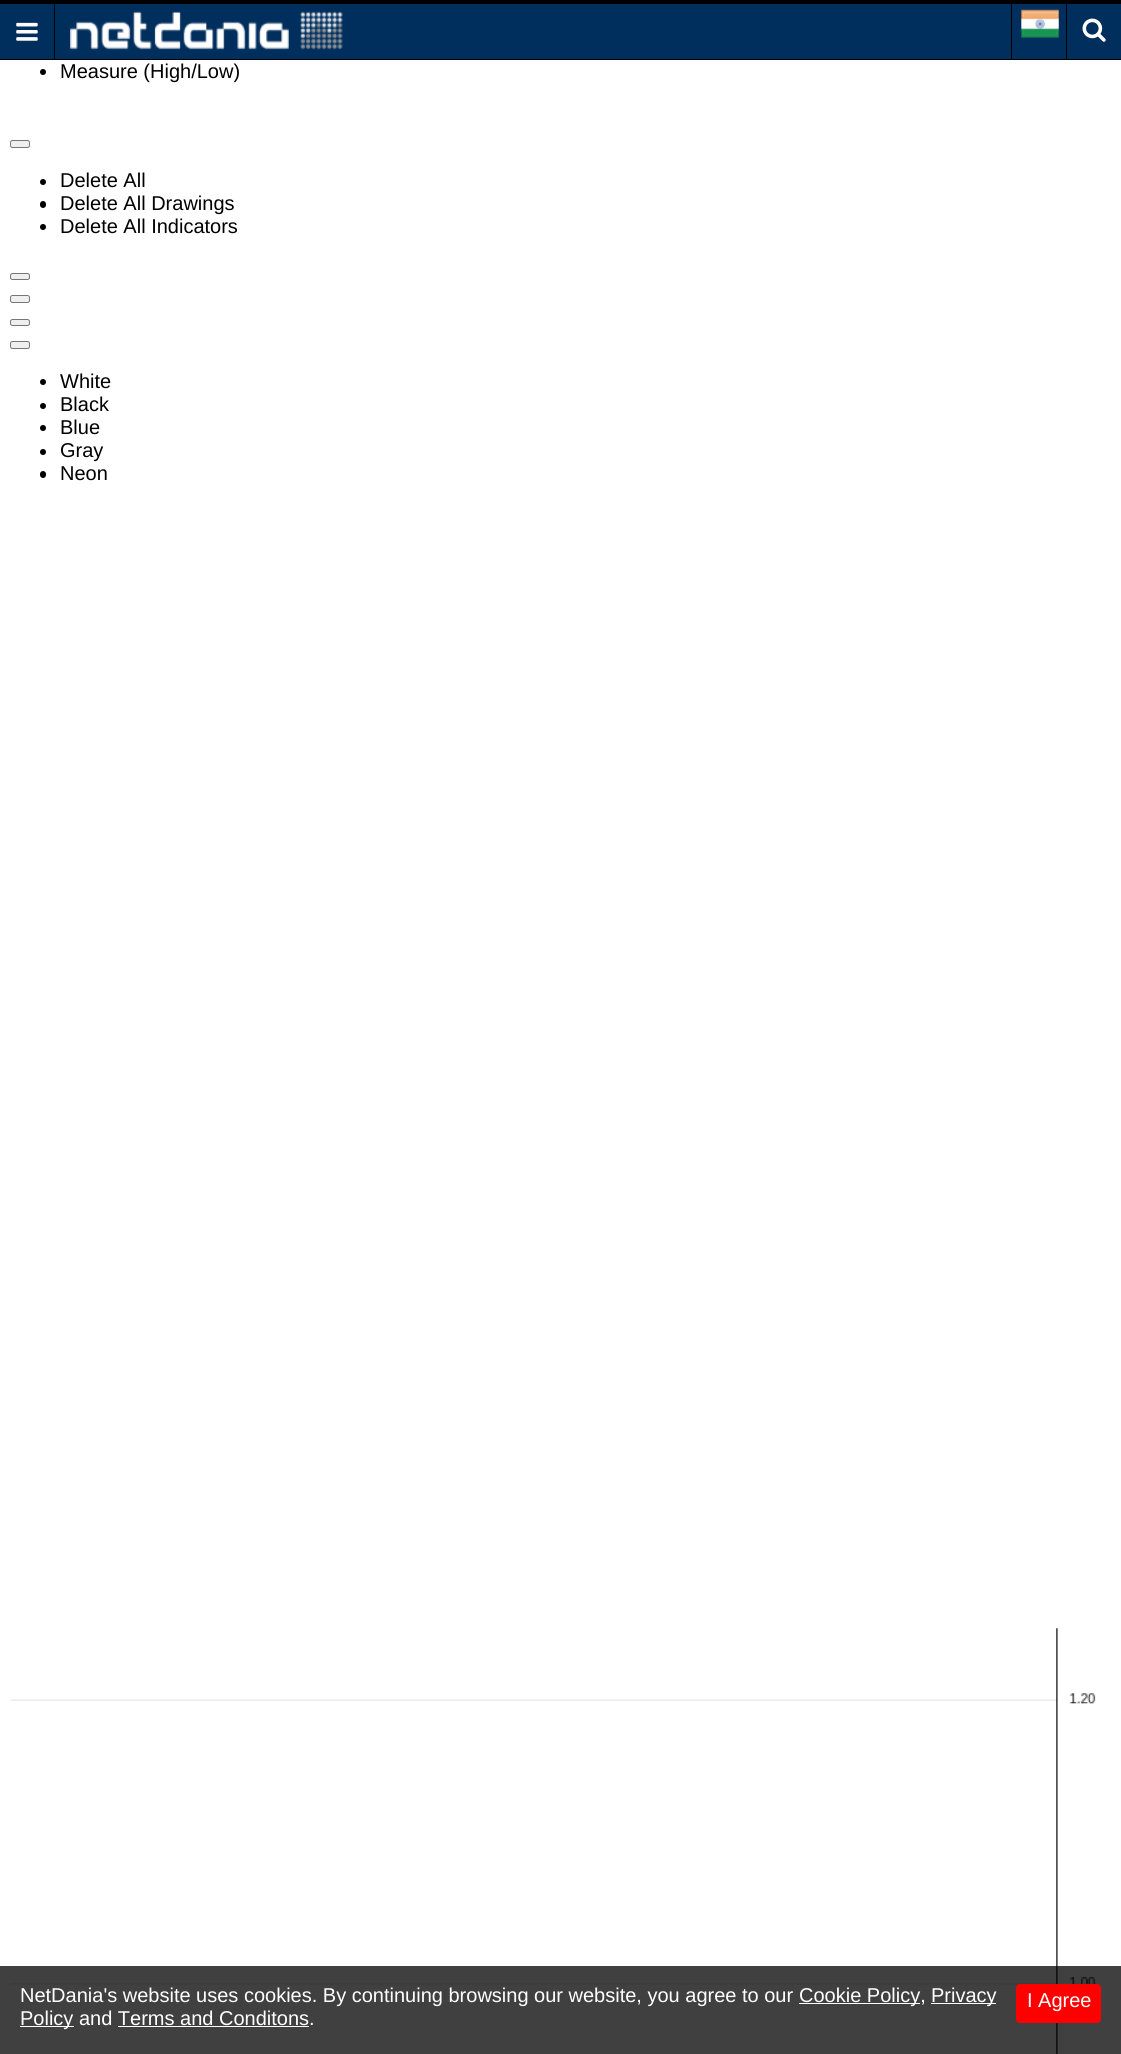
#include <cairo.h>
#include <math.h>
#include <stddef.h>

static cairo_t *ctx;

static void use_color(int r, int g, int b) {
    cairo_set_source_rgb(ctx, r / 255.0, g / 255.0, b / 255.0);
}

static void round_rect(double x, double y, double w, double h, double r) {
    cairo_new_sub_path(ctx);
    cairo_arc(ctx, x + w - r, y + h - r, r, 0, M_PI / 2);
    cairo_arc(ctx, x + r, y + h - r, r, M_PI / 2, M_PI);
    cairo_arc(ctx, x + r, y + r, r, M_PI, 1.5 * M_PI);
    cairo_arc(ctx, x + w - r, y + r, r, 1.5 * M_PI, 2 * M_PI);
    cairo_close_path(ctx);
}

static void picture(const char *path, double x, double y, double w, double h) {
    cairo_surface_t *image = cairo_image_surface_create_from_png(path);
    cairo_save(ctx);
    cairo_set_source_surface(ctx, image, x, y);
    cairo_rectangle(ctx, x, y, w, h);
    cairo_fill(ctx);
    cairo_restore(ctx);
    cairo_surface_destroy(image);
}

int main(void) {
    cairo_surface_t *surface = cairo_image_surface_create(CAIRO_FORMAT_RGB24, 1121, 2054);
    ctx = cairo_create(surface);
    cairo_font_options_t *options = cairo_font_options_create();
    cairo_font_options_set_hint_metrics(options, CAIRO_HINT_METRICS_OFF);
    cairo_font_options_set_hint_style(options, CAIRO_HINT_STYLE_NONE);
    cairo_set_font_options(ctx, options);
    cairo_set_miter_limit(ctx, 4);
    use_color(255, 255, 255);
    cairo_paint(ctx);
    use_color(0, 46, 93);
    cairo_rectangle(ctx, 0, 4, 1121, 55);
    cairo_fill(ctx);
    use_color(0, 0, 0);
    cairo_rectangle(ctx, 0, 0, 1121, 4);
    cairo_fill(ctx);
    cairo_rectangle(ctx, 0, 59, 1121, 1);
    cairo_fill(ctx);
    cairo_rectangle(ctx, 54, 4, 1, 55);
    cairo_fill(ctx);
    picture("img1.png", 16, 22, 22, 19);
    picture("img2.png", 70, 11, 273, 39);
    cairo_rectangle(ctx, 1011, 4, 1, 55);
    cairo_fill(ctx);
    picture("img3.png", 1021, 9, 38, 29);
    cairo_rectangle(ctx, 1066, 4, 1, 55);
    cairo_fill(ctx);
    picture("img4.png", 1082, 18, 24, 24);
    cairo_arc(ctx, 43, 72, 3, 0, 2 * M_PI);
    cairo_fill(ctx);
    cairo_select_font_face(ctx, "Liberation Sans", CAIRO_FONT_SLANT_NORMAL, CAIRO_FONT_WEIGHT_NORMAL);
    cairo_set_font_size(ctx, 20);
    cairo_move_to(ctx, 60, 78);
    cairo_show_text(ctx, "Measure (High/Low)");
    use_color(239, 239, 239);
    round_rect(10.5, 140.5, 19, 7, 2);
    cairo_fill_preserve(ctx);
    use_color(118, 118, 118);
    cairo_set_line_width(ctx, 1);
    cairo_stroke(ctx);
    use_color(0, 0, 0);
    cairo_arc(ctx, 43, 182, 3, 0, 2 * M_PI);
    cairo_fill(ctx);
    cairo_move_to(ctx, 60, 187);
    cairo_show_text(ctx, "Delete All");
    round_rect(40, 201, 6, 7, 3);
    cairo_fill(ctx);
    cairo_move_to(ctx, 60, 210);
    cairo_show_text(ctx, "Delete All Drawings");
    cairo_new_path(ctx);
    cairo_arc(ctx, 43, 227, 3, 0, 2 * M_PI);
    cairo_fill(ctx);
    cairo_move_to(ctx, 60, 233);
    cairo_show_text(ctx, "Delete All Indicators");
    use_color(239, 239, 239);
    round_rect(10.5, 273.5, 19, 6, 2);
    cairo_fill_preserve(ctx);
    use_color(118, 118, 118);
    cairo_stroke(ctx);
    use_color(239, 239, 239);
    round_rect(10.5, 295.5, 19, 7, 2);
    cairo_fill_preserve(ctx);
    use_color(118, 118, 118);
    cairo_stroke(ctx);
    use_color(239, 239, 239);
    round_rect(10.5, 319.5, 19, 6, 2);
    cairo_fill_preserve(ctx);
    use_color(118, 118, 118);
    cairo_stroke(ctx);
    use_color(239, 239, 239);
    round_rect(10.5, 341.5, 19, 7, 2);
    cairo_fill_preserve(ctx);
    use_color(118, 118, 118);
    cairo_stroke(ctx);
    use_color(0, 0, 0);
    cairo_arc(ctx, 43, 382, 3, 0, 2 * M_PI);
    cairo_fill(ctx);
    cairo_move_to(ctx, 60, 388);
    cairo_show_text(ctx, "White");
    cairo_new_path(ctx);
    cairo_arc(ctx, 43, 406, 3, 0, 2 * M_PI);
    cairo_fill(ctx);
    cairo_move_to(ctx, 60, 411);
    cairo_show_text(ctx, "Black");
    cairo_new_path(ctx);
    cairo_arc(ctx, 43, 428, 3, 0, 2 * M_PI);
    cairo_fill(ctx);
    cairo_move_to(ctx, 60, 434);
    cairo_show_text(ctx, "Blue");
    cairo_new_path(ctx);
    cairo_arc(ctx, 43, 452, 3, 0, 2 * M_PI);
    cairo_fill(ctx);
    cairo_move_to(ctx, 60, 457);
    cairo_show_text(ctx, "Gray");
    round_rect(40, 471, 6, 7, 3);
    cairo_fill(ctx);
    cairo_move_to(ctx, 60, 480);
    cairo_show_text(ctx, "Neon");
    picture("img5.png", 10, 1628, 1086, 426);
    cairo_set_source_rgba(ctx, 0, 0, 0, 0.75);
    cairo_rectangle(ctx, 0, 1966, 1121, 88);
    cairo_fill(ctx);
    use_color(255, 255, 255);
    cairo_move_to(ctx, 20, 2002);
    cairo_show_text(ctx, "NetDania's website uses cookies. By continuing browsing our website, you agree to our");
    cairo_rectangle(ctx, 799, 2003, 121, 1);
    cairo_fill(ctx);
    cairo_move_to(ctx, 799, 2002);
    cairo_show_text(ctx, "Cookie Policy,");
    cairo_rectangle(ctx, 931, 2003, 65, 1);
    cairo_fill(ctx);
    cairo_move_to(ctx, 931, 2002);
    cairo_show_text(ctx, "Privacy");
    use_color(255, 0, 0);
    round_rect(1016, 1984, 85, 39, 4);
    cairo_fill(ctx);
    use_color(255, 255, 255);
    cairo_move_to(ctx, 1027, 2007);
    cairo_show_text(ctx, "I Agree");
    cairo_rectangle(ctx, 20, 2026, 54, 1);
    cairo_fill(ctx);
    cairo_move_to(ctx, 20, 2025);
    cairo_show_text(ctx, "Policy and Terms and Conditons.");
    cairo_rectangle(ctx, 118, 2026, 191, 1);
    cairo_fill(ctx);
    cairo_surface_write_to_png(surface, "result.png");
    cairo_font_options_destroy(options);
    cairo_destroy(ctx);
    cairo_surface_destroy(surface);
    return 0;
}
